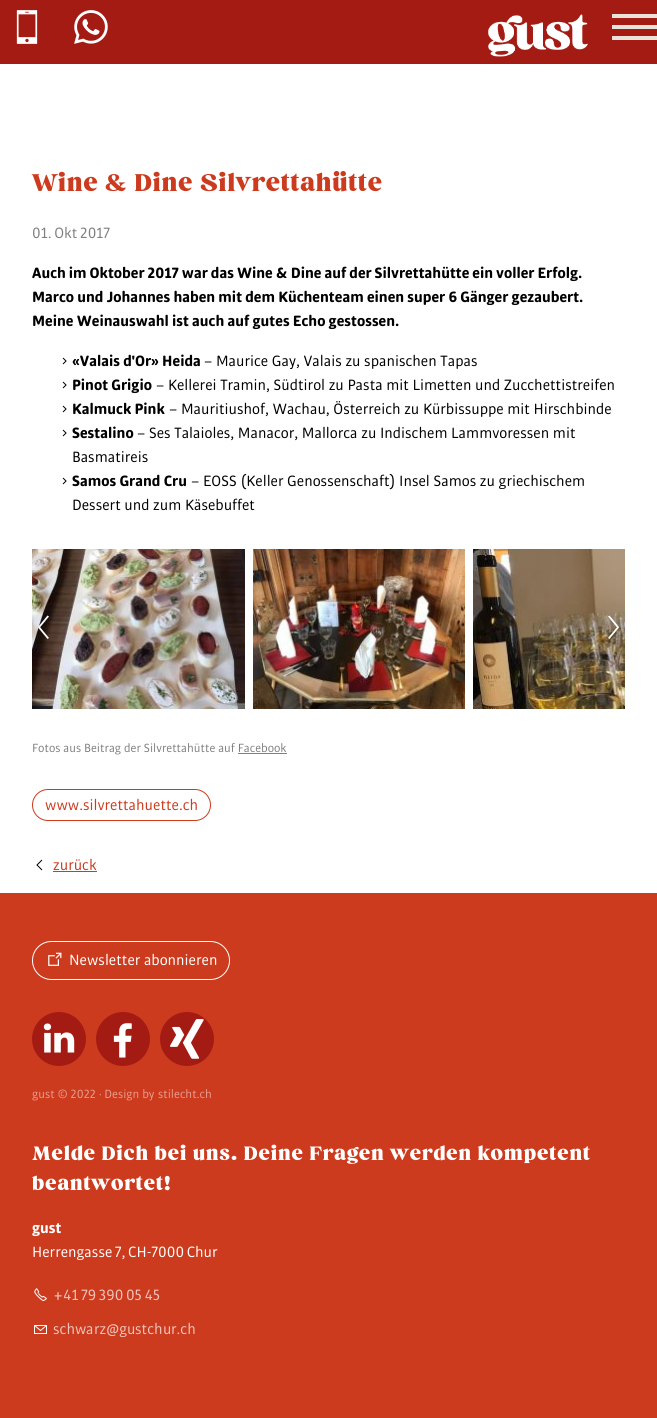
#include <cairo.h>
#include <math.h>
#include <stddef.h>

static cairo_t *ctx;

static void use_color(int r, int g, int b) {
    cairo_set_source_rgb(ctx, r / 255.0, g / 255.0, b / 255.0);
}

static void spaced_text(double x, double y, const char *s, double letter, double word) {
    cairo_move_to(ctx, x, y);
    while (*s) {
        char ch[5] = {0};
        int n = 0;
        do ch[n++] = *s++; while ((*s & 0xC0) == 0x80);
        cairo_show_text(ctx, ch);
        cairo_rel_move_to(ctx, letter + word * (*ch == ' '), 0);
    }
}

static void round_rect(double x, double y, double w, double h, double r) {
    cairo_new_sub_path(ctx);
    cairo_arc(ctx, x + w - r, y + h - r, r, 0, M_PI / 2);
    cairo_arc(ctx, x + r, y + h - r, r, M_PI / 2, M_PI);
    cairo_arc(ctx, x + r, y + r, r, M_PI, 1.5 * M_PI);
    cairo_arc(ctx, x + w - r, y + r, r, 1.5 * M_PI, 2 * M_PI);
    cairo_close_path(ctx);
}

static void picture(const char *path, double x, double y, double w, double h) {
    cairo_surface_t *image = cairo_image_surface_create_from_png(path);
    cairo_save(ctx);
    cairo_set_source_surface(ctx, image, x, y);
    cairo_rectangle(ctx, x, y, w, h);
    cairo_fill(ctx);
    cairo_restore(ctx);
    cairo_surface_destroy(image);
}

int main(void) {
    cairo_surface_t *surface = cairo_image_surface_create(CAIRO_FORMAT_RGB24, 657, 1418);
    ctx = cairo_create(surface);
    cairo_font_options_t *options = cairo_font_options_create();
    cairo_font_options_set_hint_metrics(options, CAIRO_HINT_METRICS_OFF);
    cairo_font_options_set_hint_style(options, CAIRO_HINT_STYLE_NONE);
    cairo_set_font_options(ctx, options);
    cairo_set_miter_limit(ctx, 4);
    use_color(255, 255, 255);
    cairo_paint(ctx);
    use_color(164, 27, 20);
    cairo_rectangle(ctx, 0, 0, 657, 64);
    cairo_fill(ctx);
    picture("img1.png", 488, 14, 100, 43);
    use_color(234, 227, 218);
    cairo_rectangle(ctx, 612, 14, 45, 4);
    cairo_fill(ctx);
    cairo_rectangle(ctx, 612, 25, 45, 4);
    cairo_fill(ctx);
    cairo_rectangle(ctx, 612, 36, 45, 4);
    cairo_fill(ctx);
    picture("img2.png", 16, 10, 22, 34);
    picture("img3.png", 74, 10, 34, 34);
    picture("img4.png", 31, 171, 351, 21);
    cairo_select_font_face(ctx, "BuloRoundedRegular", CAIRO_FONT_SLANT_NORMAL, CAIRO_FONT_WEIGHT_NORMAL);
    cairo_set_font_size(ctx, 16);
    use_color(128, 128, 128);
    spaced_text(32, 238, "01. Okt 2017", 0, -1);
    cairo_select_font_face(ctx, "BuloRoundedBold", CAIRO_FONT_SLANT_NORMAL, CAIRO_FONT_WEIGHT_BOLD);
    use_color(0, 0, 0);
    spaced_text(32, 278, "Auch im Oktober 2017 war das Wine & Dine auf der Silvrettahütte ein voller Erfolg.", 0, -0.25);
    cairo_move_to(ctx, 32, 302);
    cairo_show_text(ctx, "Marco und Johannes haben mit dem Küchenteam einen super 6 Gänger gezaubert.");
    cairo_move_to(ctx, 32, 326);
    cairo_show_text(ctx, "Meine Weinauswahl ist auch auf gutes Echo gestossen.");
    cairo_new_path(ctx);
    cairo_move_to(ctx, 63, 358);
    cairo_line_to(ctx, 66, 361);
    cairo_line_to(ctx, 63, 364);
    cairo_set_line_width(ctx, 1);
    cairo_stroke(ctx);
    cairo_move_to(ctx, 72, 366);
    cairo_show_text(ctx, "«Valais d'Or» Heida");
    cairo_select_font_face(ctx, "BuloRoundedRegular", CAIRO_FONT_SLANT_NORMAL, CAIRO_FONT_WEIGHT_NORMAL);
    cairo_move_to(ctx, 204, 366);
    cairo_show_text(ctx, "– Maurice Gay, Valais zu spanischen Tapas");
    cairo_new_path(ctx);
    cairo_move_to(ctx, 63, 382);
    cairo_line_to(ctx, 66, 385);
    cairo_line_to(ctx, 63, 388);
    cairo_stroke(ctx);
    cairo_select_font_face(ctx, "BuloRoundedBold", CAIRO_FONT_SLANT_NORMAL, CAIRO_FONT_WEIGHT_BOLD);
    cairo_move_to(ctx, 72, 390);
    cairo_show_text(ctx, "Pinot Grigio");
    cairo_select_font_face(ctx, "BuloRoundedRegular", CAIRO_FONT_SLANT_NORMAL, CAIRO_FONT_WEIGHT_NORMAL);
    cairo_move_to(ctx, 156, 390);
    cairo_show_text(ctx, "– Kellerei Tramin, Südtirol zu Pasta mit Limetten und Zucchettistreifen");
    cairo_new_path(ctx);
    cairo_move_to(ctx, 63, 406);
    cairo_line_to(ctx, 66, 409);
    cairo_line_to(ctx, 63, 412);
    cairo_stroke(ctx);
    cairo_select_font_face(ctx, "BuloRoundedBold", CAIRO_FONT_SLANT_NORMAL, CAIRO_FONT_WEIGHT_BOLD);
    cairo_move_to(ctx, 72, 414);
    cairo_show_text(ctx, "Kalmuck Pink");
    cairo_select_font_face(ctx, "BuloRoundedRegular", CAIRO_FONT_SLANT_NORMAL, CAIRO_FONT_WEIGHT_NORMAL);
    cairo_move_to(ctx, 169, 414);
    cairo_show_text(ctx, "– Mauritiushof, Wachau, Österreich zu Kürbissuppe mit Hirschbinde");
    cairo_new_path(ctx);
    cairo_move_to(ctx, 63, 430);
    cairo_line_to(ctx, 66, 433);
    cairo_line_to(ctx, 63, 436);
    cairo_stroke(ctx);
    cairo_select_font_face(ctx, "BuloRoundedBold", CAIRO_FONT_SLANT_NORMAL, CAIRO_FONT_WEIGHT_BOLD);
    cairo_move_to(ctx, 72, 438);
    cairo_show_text(ctx, "Sestalino");
    cairo_select_font_face(ctx, "BuloRoundedRegular", CAIRO_FONT_SLANT_NORMAL, CAIRO_FONT_WEIGHT_NORMAL);
    cairo_move_to(ctx, 137, 438);
    cairo_show_text(ctx, "– Ses Talaioles, Manacor, Mallorca zu Indischem Lammvoressen mit");
    cairo_move_to(ctx, 72, 462);
    cairo_show_text(ctx, "Basmatireis");
    cairo_new_path(ctx);
    cairo_move_to(ctx, 63, 478);
    cairo_line_to(ctx, 66, 481);
    cairo_line_to(ctx, 63, 484);
    cairo_stroke(ctx);
    cairo_select_font_face(ctx, "BuloRoundedBold", CAIRO_FONT_SLANT_NORMAL, CAIRO_FONT_WEIGHT_BOLD);
    cairo_move_to(ctx, 72, 486);
    cairo_show_text(ctx, "Samos Grand Cru");
    cairo_select_font_face(ctx, "BuloRoundedRegular", CAIRO_FONT_SLANT_NORMAL, CAIRO_FONT_WEIGHT_NORMAL);
    cairo_move_to(ctx, 191, 486);
    cairo_show_text(ctx, "– EOSS (Keller Genossenschaft) Insel Samos zu griechischem");
    cairo_move_to(ctx, 72, 510);
    cairo_show_text(ctx, "Dessert und zum Käsebuffet");
    picture("img5.png", 32, 549, 213, 160);
    picture("img6.png", 253, 549, 212, 160);
    picture("img7.png", 473, 549, 152, 160);
    use_color(255, 255, 255);
    cairo_new_path(ctx);
    cairo_move_to(ctx, 38, 627);
    cairo_line_to(ctx, 47.5, 615.5);
    cairo_line_to(ctx, 49, 616.5);
    cairo_line_to(ctx, 39.5, 628);
    cairo_close_path(ctx);
    cairo_fill(ctx);
    cairo_new_path(ctx);
    cairo_move_to(ctx, 39.5, 626.5);
    cairo_line_to(ctx, 49, 638);
    cairo_line_to(ctx, 47.5, 639);
    cairo_line_to(ctx, 38, 627.5);
    cairo_close_path(ctx);
    cairo_fill(ctx);
    cairo_new_path(ctx);
    cairo_move_to(ctx, 609.5, 615.5);
    cairo_line_to(ctx, 619, 627);
    cairo_line_to(ctx, 617.5, 628);
    cairo_line_to(ctx, 608, 616.5);
    cairo_close_path(ctx);
    cairo_fill(ctx);
    cairo_new_path(ctx);
    cairo_move_to(ctx, 608, 638);
    cairo_line_to(ctx, 617.5, 626.5);
    cairo_line_to(ctx, 619, 627.5);
    cairo_line_to(ctx, 609.5, 639);
    cairo_close_path(ctx);
    cairo_fill(ctx);
    cairo_set_font_size(ctx, 12.75);
    use_color(128, 128, 128);
    cairo_move_to(ctx, 32, 752);
    cairo_show_text(ctx, "Fotos aus Beitrag der Silvrettahütte auf Facebook");
    cairo_rectangle(ctx, 238, 753, 49, 1);
    cairo_fill(ctx);
    round_rect(32.5, 789.5, 178, 31, 15.5);
    use_color(205, 59, 30);
    cairo_stroke(ctx);
    cairo_set_font_size(ctx, 16);
    cairo_move_to(ctx, 45, 810);
    cairo_show_text(ctx, "www.silvrettahuette.ch");
    cairo_new_path(ctx);
    cairo_move_to(ctx, 42, 860);
    cairo_line_to(ctx, 37, 865);
    cairo_line_to(ctx, 42, 870);
    use_color(0, 0, 0);
    cairo_stroke(ctx);
    use_color(205, 59, 30);
    cairo_move_to(ctx, 53, 870);
    cairo_show_text(ctx, "zurück");
    cairo_rectangle(ctx, 53, 871, 44, 1);
    cairo_fill(ctx);
    cairo_rectangle(ctx, 0, 893, 657, 525);
    cairo_fill(ctx);
    round_rect(32.5, 941.5, 197, 38, 19);
    use_color(255, 255, 255);
    cairo_stroke(ctx);
    picture("img8.png", 48, 952, 14, 14);
    cairo_move_to(ctx, 69, 965);
    cairo_show_text(ctx, "Newsletter abonnieren");
    use_color(164, 27, 20);
    cairo_new_path(ctx);
    cairo_arc(ctx, 59, 1039, 27, 0, 2 * M_PI);
    cairo_fill(ctx);
    picture("img9.png", 43, 1023, 32, 30);
    cairo_arc(ctx, 123, 1039, 27, 0, 2 * M_PI);
    cairo_fill(ctx);
    picture("img10.png", 113, 1023, 19, 35);
    cairo_arc(ctx, 187, 1039, 27, 0, 2 * M_PI);
    cairo_fill(ctx);
    picture("img11.png", 170, 1019, 34, 40);
    cairo_set_font_size(ctx, 12.75);
    use_color(230, 157, 143);
    cairo_move_to(ctx, 32, 1098);
    cairo_show_text(ctx, "gust © 2022 · Design by");
    cairo_move_to(ctx, 158, 1098);
    cairo_show_text(ctx, "stilecht.ch");
    picture("img12.png", 32, 1144, 558, 20);
    picture("img13.png", 32, 1175, 138, 16);
    cairo_select_font_face(ctx, "BuloRoundedBold", CAIRO_FONT_SLANT_NORMAL, CAIRO_FONT_WEIGHT_BOLD);
    cairo_set_font_size(ctx, 16);
    use_color(255, 255, 255);
    cairo_move_to(ctx, 32, 1233);
    cairo_show_text(ctx, "gust");
    cairo_select_font_face(ctx, "BuloRoundedRegular", CAIRO_FONT_SLANT_NORMAL, CAIRO_FONT_WEIGHT_NORMAL);
    spaced_text(32, 1257, "Herrengasse 7, CH-7000 Chur", 0, -1);
    picture("img14.png", 34, 1288, 13, 13);
    use_color(240, 196, 188);
    spaced_text(53, 1300, "+41 79 390 05 45", 0, -1);
    picture("img15.png", 34, 1325, 13, 9);
    cairo_move_to(ctx, 53, 1334);
    cairo_show_text(ctx, "schw");
    picture("img16.png", 86, 1326, 7, 9);
    cairo_move_to(ctx, 94, 1334);
    cairo_show_text(ctx, "rz@g");
    picture("img17.png", 128, 1326, 7, 9);
    cairo_move_to(ctx, 135, 1334);
    cairo_show_text(ctx, "stch");
    picture("img17.png", 164, 1326, 7, 9);
    cairo_move_to(ctx, 171, 1334);
    cairo_show_text(ctx, "r.ch");
    cairo_surface_write_to_png(surface, "result.png");
    cairo_font_options_destroy(options);
    cairo_destroy(ctx);
    cairo_surface_destroy(surface);
    return 0;
}
